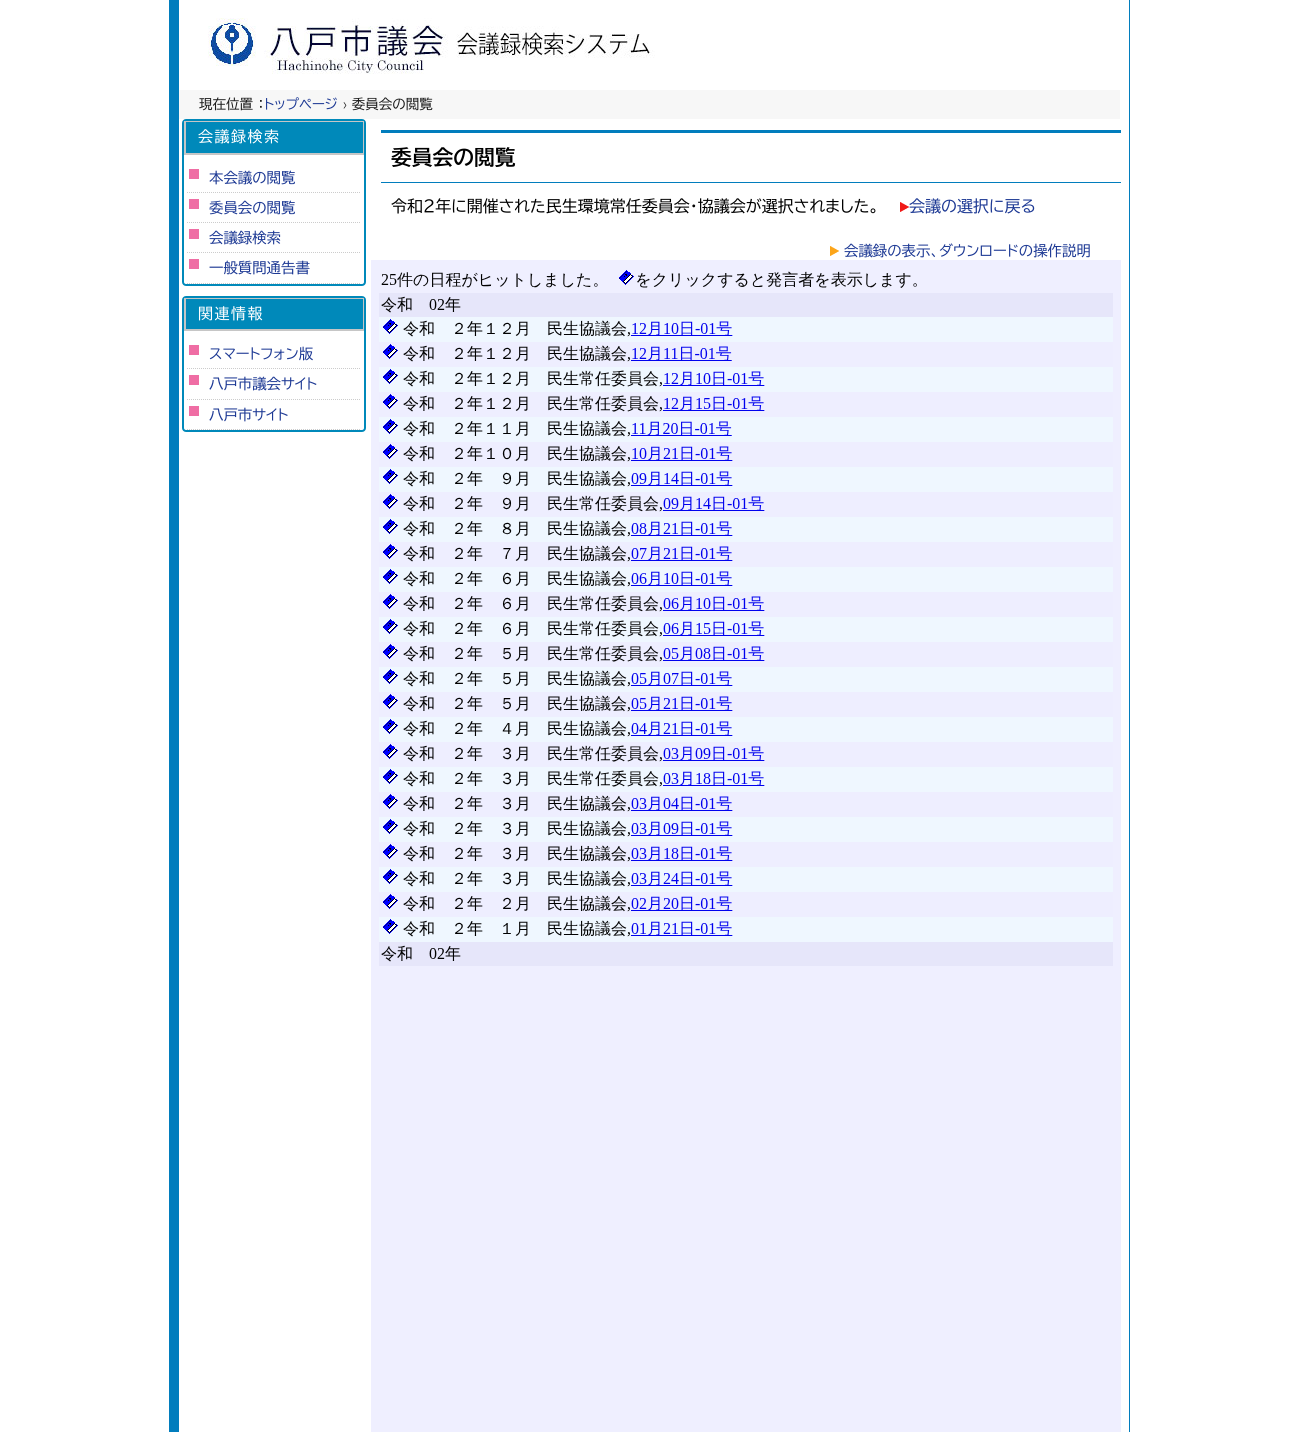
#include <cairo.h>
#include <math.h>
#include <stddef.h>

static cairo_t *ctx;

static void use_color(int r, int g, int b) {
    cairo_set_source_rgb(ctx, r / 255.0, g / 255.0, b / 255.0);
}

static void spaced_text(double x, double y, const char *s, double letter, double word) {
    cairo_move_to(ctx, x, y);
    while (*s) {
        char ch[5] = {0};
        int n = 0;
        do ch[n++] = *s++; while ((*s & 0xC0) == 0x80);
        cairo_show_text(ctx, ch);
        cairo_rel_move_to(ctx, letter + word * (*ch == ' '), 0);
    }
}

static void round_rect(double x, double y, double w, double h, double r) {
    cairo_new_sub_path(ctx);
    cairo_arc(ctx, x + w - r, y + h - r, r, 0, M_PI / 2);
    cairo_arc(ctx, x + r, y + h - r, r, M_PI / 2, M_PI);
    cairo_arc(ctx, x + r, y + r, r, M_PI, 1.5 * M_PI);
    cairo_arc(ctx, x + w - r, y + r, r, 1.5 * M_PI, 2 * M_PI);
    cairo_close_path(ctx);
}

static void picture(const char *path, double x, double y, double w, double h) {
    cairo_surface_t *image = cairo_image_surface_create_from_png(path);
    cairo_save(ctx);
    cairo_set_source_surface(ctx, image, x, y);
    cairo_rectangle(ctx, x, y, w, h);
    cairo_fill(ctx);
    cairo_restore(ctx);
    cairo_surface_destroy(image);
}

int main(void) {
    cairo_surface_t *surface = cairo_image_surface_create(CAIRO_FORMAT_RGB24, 1298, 1432);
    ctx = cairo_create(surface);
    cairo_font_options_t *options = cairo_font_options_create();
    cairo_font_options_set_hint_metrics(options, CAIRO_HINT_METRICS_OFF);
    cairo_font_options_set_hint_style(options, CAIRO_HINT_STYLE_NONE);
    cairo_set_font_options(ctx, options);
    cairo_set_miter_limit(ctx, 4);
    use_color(255, 255, 255);
    cairo_paint(ctx);
    use_color(1, 125, 189);
    cairo_rectangle(ctx, 1129, 0, 1, 1432);
    cairo_fill(ctx);
    cairo_rectangle(ctx, 169, 0, 10, 1432);
    cairo_fill(ctx);
    picture("img1.png", 208, 18, 447, 56);
    use_color(247, 247, 247);
    cairo_rectangle(ctx, 179, 90, 941, 29);
    cairo_fill(ctx);
    cairo_select_font_face(ctx, "BIZ UDPGothic", CAIRO_FONT_SLANT_NORMAL, CAIRO_FONT_WEIGHT_NORMAL);
    cairo_set_font_size(ctx, 13.5);
    use_color(29, 29, 29);
    cairo_move_to(ctx, 199, 109);
    cairo_show_text(ctx, "現在位置 ：");
    use_color(29, 57, 148);
    cairo_move_to(ctx, 264, 109);
    cairo_show_text(ctx, "トップページ");
    use_color(29, 29, 29);
    cairo_move_to(ctx, 343, 109);
    cairo_show_text(ctx, "› 委員会の閲覧");
    round_rect(183, 120, 182, 165, 3);
    use_color(0, 137, 186);
    cairo_stroke(ctx);
    cairo_rectangle(ctx, 186, 122, 177, 31);
    cairo_fill(ctx);
    use_color(198, 198, 198);
    cairo_rectangle(ctx, 184, 121, 180, 1);
    cairo_fill(ctx);
    cairo_rectangle(ctx, 363, 121, 1, 34);
    cairo_fill(ctx);
    cairo_rectangle(ctx, 184, 153, 180, 2);
    cairo_fill(ctx);
    cairo_rectangle(ctx, 184, 121, 2, 34);
    cairo_fill(ctx);
    cairo_set_font_size(ctx, 15);
    use_color(255, 255, 255);
    spaced_text(198, 142, "会議録検索", 1.5, 0);
    use_color(239, 109, 164);
    cairo_rectangle(ctx, 189, 169, 10, 10);
    cairo_fill(ctx);
    cairo_new_path(ctx);
    cairo_move_to(ctx, 187, 192.5);
    cairo_line_to(ctx, 361, 192.5);
    use_color(204, 204, 204);
    cairo_set_line_width(ctx, 1);
    cairo_set_dash(ctx, (double[]){1, 1}, 2, 0);
    cairo_stroke(ctx);
    cairo_set_font_size(ctx, 14.4);
    use_color(29, 57, 148);
    cairo_move_to(ctx, 209, 183);
    cairo_show_text(ctx, "本会議の閲覧");
    use_color(239, 109, 164);
    cairo_rectangle(ctx, 189, 199, 10, 10);
    cairo_fill(ctx);
    cairo_new_path(ctx);
    cairo_move_to(ctx, 187, 222.5);
    cairo_line_to(ctx, 361, 222.5);
    use_color(204, 204, 204);
    cairo_stroke(ctx);
    use_color(29, 57, 148);
    cairo_move_to(ctx, 209, 213);
    cairo_show_text(ctx, "委員会の閲覧");
    use_color(239, 109, 164);
    cairo_rectangle(ctx, 189, 229, 10, 10);
    cairo_fill(ctx);
    cairo_new_path(ctx);
    cairo_move_to(ctx, 187, 252.5);
    cairo_line_to(ctx, 361, 252.5);
    use_color(204, 204, 204);
    cairo_stroke(ctx);
    use_color(29, 57, 148);
    cairo_move_to(ctx, 209, 243);
    cairo_show_text(ctx, "会議録検索");
    use_color(239, 109, 164);
    cairo_rectangle(ctx, 189, 259, 10, 10);
    cairo_fill(ctx);
    cairo_new_path(ctx);
    cairo_move_to(ctx, 187, 283.5);
    cairo_line_to(ctx, 361, 283.5);
    use_color(204, 204, 204);
    cairo_stroke(ctx);
    use_color(29, 57, 148);
    cairo_move_to(ctx, 209, 273);
    cairo_show_text(ctx, "一般質問通告書");
    round_rect(183, 297, 182, 134, 3);
    use_color(0, 137, 186);
    cairo_set_line_width(ctx, 2);
    cairo_set_dash(ctx, NULL, 0, 0);
    cairo_stroke(ctx);
    cairo_rectangle(ctx, 186, 299, 177, 30);
    cairo_fill(ctx);
    use_color(198, 198, 198);
    cairo_rectangle(ctx, 184, 298, 180, 1);
    cairo_fill(ctx);
    cairo_rectangle(ctx, 363, 298, 1, 33);
    cairo_fill(ctx);
    cairo_rectangle(ctx, 184, 329, 180, 2);
    cairo_fill(ctx);
    cairo_rectangle(ctx, 184, 298, 2, 33);
    cairo_fill(ctx);
    cairo_set_font_size(ctx, 15);
    use_color(255, 255, 255);
    spaced_text(198, 319, "関連情報", 1.5, 0);
    use_color(239, 109, 164);
    cairo_rectangle(ctx, 189, 345, 10, 10);
    cairo_fill(ctx);
    cairo_new_path(ctx);
    cairo_move_to(ctx, 187, 368.5);
    cairo_line_to(ctx, 361, 368.5);
    use_color(204, 204, 204);
    cairo_set_line_width(ctx, 1);
    cairo_set_dash(ctx, (double[]){1, 1}, 2, 0);
    cairo_stroke(ctx);
    cairo_set_font_size(ctx, 14.4);
    use_color(29, 57, 148);
    cairo_move_to(ctx, 209, 359);
    cairo_show_text(ctx, "スマートフォン版");
    use_color(239, 109, 164);
    cairo_rectangle(ctx, 189, 375, 10, 10);
    cairo_fill(ctx);
    cairo_new_path(ctx);
    cairo_move_to(ctx, 187, 399.5);
    cairo_line_to(ctx, 361, 399.5);
    use_color(204, 204, 204);
    cairo_stroke(ctx);
    use_color(29, 57, 148);
    cairo_move_to(ctx, 209, 389);
    cairo_show_text(ctx, "八戸市議会サイト");
    use_color(239, 109, 164);
    cairo_rectangle(ctx, 189, 406, 10, 10);
    cairo_fill(ctx);
    cairo_new_path(ctx);
    cairo_move_to(ctx, 187, 429.5);
    cairo_line_to(ctx, 361, 429.5);
    use_color(204, 204, 204);
    cairo_stroke(ctx);
    use_color(29, 57, 148);
    cairo_move_to(ctx, 209, 420);
    cairo_show_text(ctx, "八戸市サイト");
    use_color(1, 125, 189);
    cairo_rectangle(ctx, 381, 130, 740, 3);
    cairo_fill(ctx);
    cairo_rectangle(ctx, 381, 182, 740, 1);
    cairo_fill(ctx);
    cairo_select_font_face(ctx, "BIZ UDPGothic", CAIRO_FONT_SLANT_NORMAL, CAIRO_FONT_WEIGHT_BOLD);
    cairo_set_font_size(ctx, 20.75);
    use_color(0, 0, 0);
    cairo_move_to(ctx, 391, 165);
    cairo_show_text(ctx, "委員会の閲覧");
    cairo_select_font_face(ctx, "BIZ UDPGothic", CAIRO_FONT_SLANT_NORMAL, CAIRO_FONT_WEIGHT_NORMAL);
    cairo_set_font_size(ctx, 16);
    cairo_move_to(ctx, 391, 212);
    cairo_show_text(ctx, "令和2年に開催された民生環境常任委員会・協議会が選択されました。");
    picture("img2.png", 900, 202, 9, 10);
    use_color(29, 57, 148);
    cairo_move_to(ctx, 909, 212);
    cairo_show_text(ctx, "会議の選択に戻る");
    picture("img3.png", 830, 246, 9, 10);
    cairo_set_font_size(ctx, 14.4);
    cairo_move_to(ctx, 844, 256);
    cairo_show_text(ctx, "会議録の表示、ダウンロードの操作説明");
    picture("img4.png", 371, 260, 750, 1172);
    cairo_surface_write_to_png(surface, "result.png");
    cairo_font_options_destroy(options);
    cairo_destroy(ctx);
    cairo_surface_destroy(surface);
    return 0;
}
